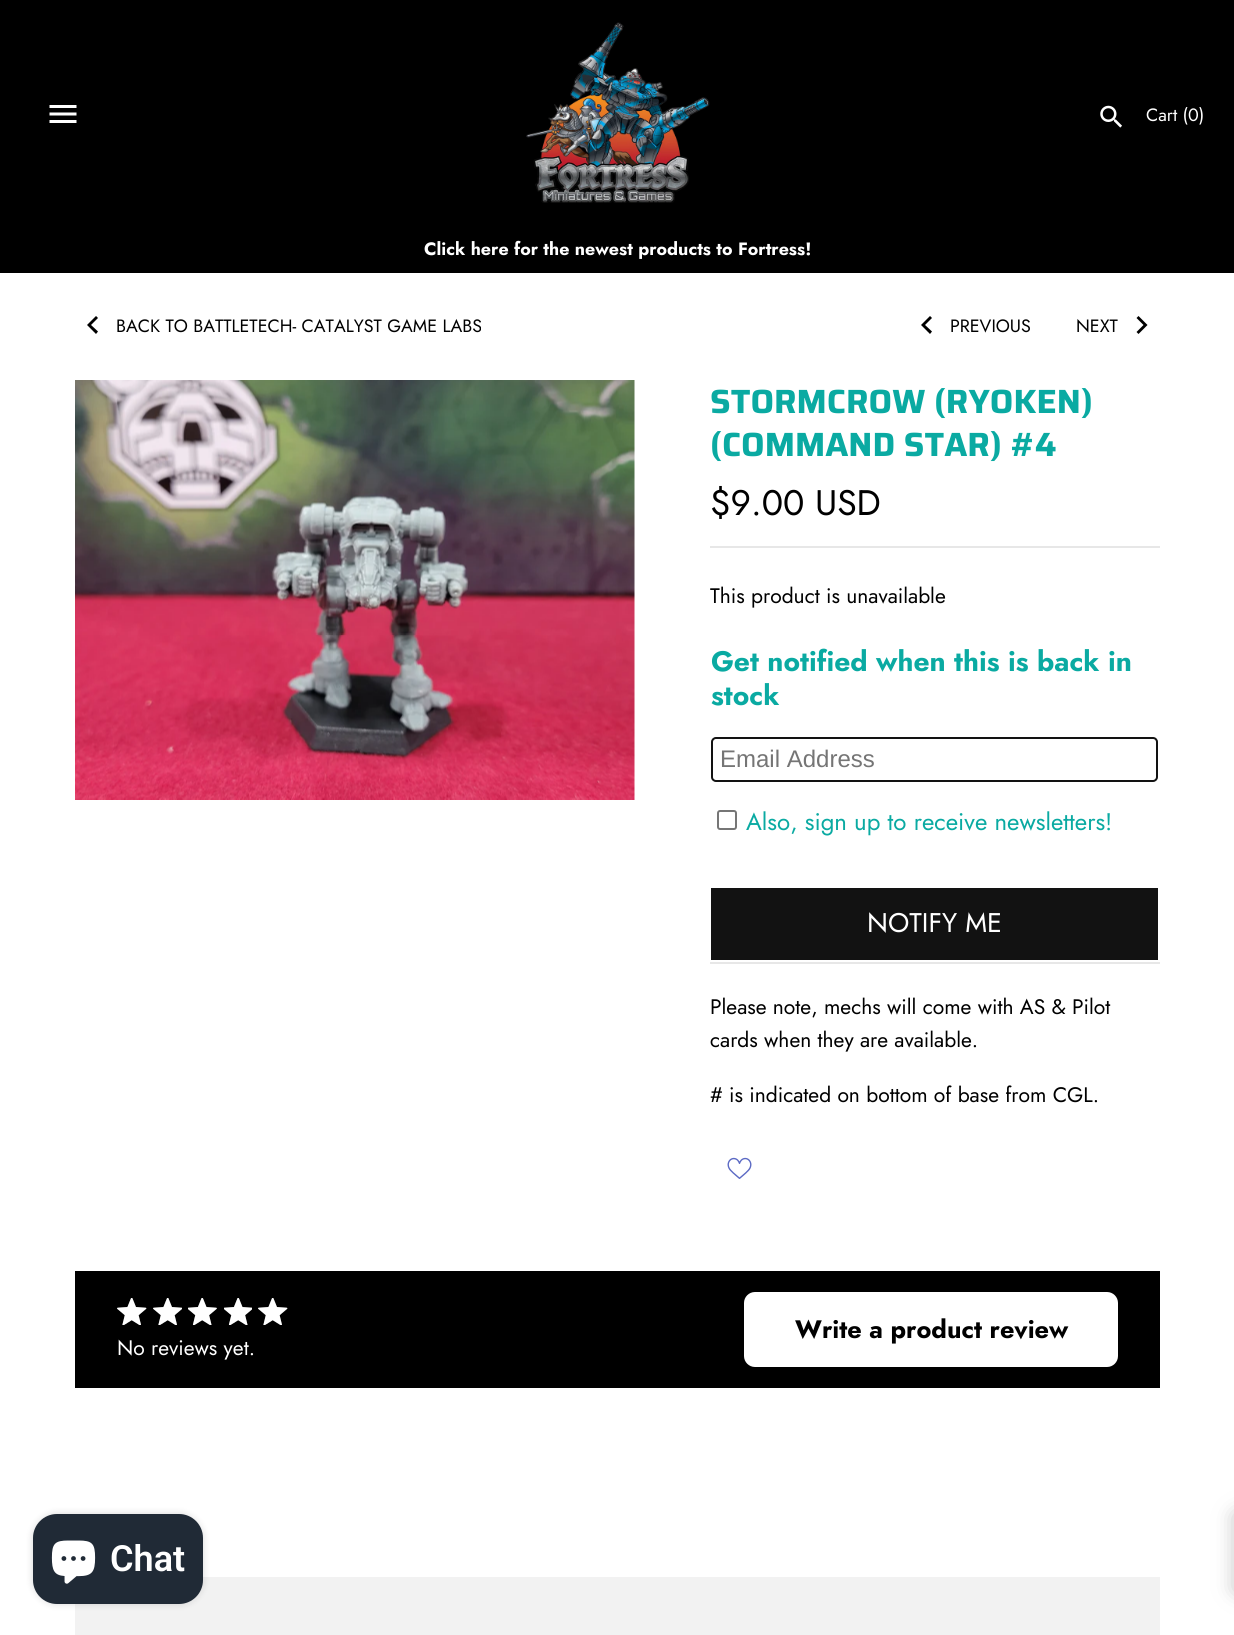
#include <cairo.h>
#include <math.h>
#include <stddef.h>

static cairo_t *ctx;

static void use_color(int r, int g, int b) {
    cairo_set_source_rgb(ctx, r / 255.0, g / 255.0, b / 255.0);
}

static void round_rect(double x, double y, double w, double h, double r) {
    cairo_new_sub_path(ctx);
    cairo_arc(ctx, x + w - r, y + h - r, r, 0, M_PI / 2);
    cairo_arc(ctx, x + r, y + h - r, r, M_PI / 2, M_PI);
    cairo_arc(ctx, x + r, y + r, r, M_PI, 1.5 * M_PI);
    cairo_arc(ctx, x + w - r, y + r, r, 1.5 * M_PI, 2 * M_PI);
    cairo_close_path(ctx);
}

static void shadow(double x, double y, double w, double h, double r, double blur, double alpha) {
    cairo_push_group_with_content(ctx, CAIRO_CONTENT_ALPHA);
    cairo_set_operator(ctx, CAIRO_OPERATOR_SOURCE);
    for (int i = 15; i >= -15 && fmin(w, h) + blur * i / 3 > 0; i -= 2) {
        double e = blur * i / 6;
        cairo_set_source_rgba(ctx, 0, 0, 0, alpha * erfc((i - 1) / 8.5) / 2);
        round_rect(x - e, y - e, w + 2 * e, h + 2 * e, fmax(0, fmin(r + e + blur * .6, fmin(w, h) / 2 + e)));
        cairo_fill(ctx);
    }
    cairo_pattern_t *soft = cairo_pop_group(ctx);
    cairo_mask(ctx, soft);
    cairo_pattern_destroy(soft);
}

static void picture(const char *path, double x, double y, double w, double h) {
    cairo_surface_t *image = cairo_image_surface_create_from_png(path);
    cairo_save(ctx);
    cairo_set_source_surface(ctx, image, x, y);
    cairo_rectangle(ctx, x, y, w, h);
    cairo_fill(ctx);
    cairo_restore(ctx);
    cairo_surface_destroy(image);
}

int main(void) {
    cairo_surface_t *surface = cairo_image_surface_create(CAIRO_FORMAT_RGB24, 1234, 1635);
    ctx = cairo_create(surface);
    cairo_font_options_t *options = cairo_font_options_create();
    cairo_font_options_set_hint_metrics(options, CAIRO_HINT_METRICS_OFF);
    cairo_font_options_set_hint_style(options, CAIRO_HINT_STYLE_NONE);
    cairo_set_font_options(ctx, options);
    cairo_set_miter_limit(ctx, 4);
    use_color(255, 255, 255);
    cairo_paint(ctx);
    use_color(0, 0, 0);
    cairo_rectangle(ctx, 0, 0, 1234, 273);
    cairo_fill(ctx);
    picture("img1.png", 49, 105, 28, 18);
    picture("img2.png", 526, 22, 184, 181);
    picture("img3.png", 1100, 105, 22, 23);
    cairo_select_font_face(ctx, "Jost", CAIRO_FONT_SLANT_NORMAL, CAIRO_FONT_WEIGHT_NORMAL);
    cairo_set_font_size(ctx, 17.85);
    use_color(255, 255, 255);
    cairo_move_to(ctx, 1146, 121);
    cairo_show_text(ctx, "Cart (0)");
    cairo_select_font_face(ctx, "Jost", CAIRO_FONT_SLANT_NORMAL, CAIRO_FONT_WEIGHT_BOLD);
    cairo_move_to(ctx, 424, 255);
    cairo_show_text(ctx, "Click here for the newest products to Fortress!");
    cairo_select_font_face(ctx, "Jost", CAIRO_FONT_SLANT_NORMAL, CAIRO_FONT_WEIGHT_NORMAL);
    use_color(0, 0, 0);
    cairo_move_to(ctx, 116, 332);
    cairo_show_text(ctx, "BACK TO BATTLETECH- CATALYST GAME LABS");
    cairo_new_path(ctx);
    cairo_move_to(ctx, 98, 331.5);
    cairo_line_to(ctx, 91, 325);
    cairo_line_to(ctx, 98, 318);
    cairo_line_to(ctx, 96, 316);
    cairo_line_to(ctx, 87, 325);
    cairo_line_to(ctx, 96, 334);
    cairo_close_path(ctx);
    cairo_fill(ctx);
    cairo_move_to(ctx, 950, 332);
    cairo_show_text(ctx, "PREVIOUS");
    cairo_new_path(ctx);
    cairo_move_to(ctx, 932, 331.5);
    cairo_line_to(ctx, 925, 325);
    cairo_line_to(ctx, 932, 318);
    cairo_line_to(ctx, 930, 316);
    cairo_line_to(ctx, 921, 325);
    cairo_line_to(ctx, 930, 334);
    cairo_close_path(ctx);
    cairo_fill(ctx);
    cairo_move_to(ctx, 1076, 332);
    cairo_show_text(ctx, "NEXT");
    cairo_new_path(ctx);
    cairo_move_to(ctx, 1136.5, 332);
    cairo_line_to(ctx, 1143.5, 325);
    cairo_line_to(ctx, 1136.5, 318);
    cairo_line_to(ctx, 1138.5, 316);
    cairo_line_to(ctx, 1147.5, 325);
    cairo_line_to(ctx, 1138.5, 334);
    cairo_close_path(ctx);
    cairo_fill(ctx);
    picture("img4.png", 75, 380, 560, 420);
    cairo_select_font_face(ctx, "Saira", CAIRO_FONT_SLANT_NORMAL, CAIRO_FONT_WEIGHT_BOLD);
    cairo_set_font_size(ctx, 33.6);
    use_color(10, 170, 162);
    cairo_move_to(ctx, 710, 413);
    cairo_show_text(ctx, "STORMCROW (RYOKEN)");
    cairo_move_to(ctx, 710, 456);
    cairo_show_text(ctx, "(COMMAND STAR) #4");
    cairo_select_font_face(ctx, "Jost", CAIRO_FONT_SLANT_NORMAL, CAIRO_FONT_WEIGHT_NORMAL);
    cairo_set_font_size(ctx, 35.5);
    use_color(0, 0, 0);
    cairo_move_to(ctx, 710, 515);
    cairo_show_text(ctx, "$9.00 USD");
    use_color(231, 231, 231);
    cairo_rectangle(ctx, 710, 546, 450, 2);
    cairo_fill(ctx);
    cairo_set_font_size(ctx, 21);
    use_color(0, 0, 0);
    cairo_move_to(ctx, 710, 603);
    cairo_show_text(ctx, "This product is unavailable");
    cairo_select_font_face(ctx, "Jost", CAIRO_FONT_SLANT_NORMAL, CAIRO_FONT_WEIGHT_BOLD);
    cairo_set_font_size(ctx, 28.1);
    use_color(10, 170, 162);
    cairo_move_to(ctx, 711, 671);
    cairo_show_text(ctx, "Get notified when this is back in");
    cairo_move_to(ctx, 711, 705);
    cairo_show_text(ctx, "stock");
    round_rect(712, 738, 445, 43, 4);
    use_color(18, 18, 18);
    cairo_stroke(ctx);
    cairo_select_font_face(ctx, "Liberation Sans", CAIRO_FONT_SLANT_NORMAL, CAIRO_FONT_WEIGHT_NORMAL);
    cairo_set_font_size(ctx, 24);
    use_color(117, 117, 117);
    cairo_move_to(ctx, 720, 767);
    cairo_show_text(ctx, "Email Address");
    round_rect(718, 811, 18, 18, 2);
    use_color(118, 118, 118);
    cairo_stroke(ctx);
    cairo_select_font_face(ctx, "Jost", CAIRO_FONT_SLANT_NORMAL, CAIRO_FONT_WEIGHT_NORMAL);
    use_color(10, 170, 162);
    cairo_move_to(ctx, 746, 830);
    cairo_show_text(ctx, "Also, sign up to receive newsletters!");
    use_color(18, 18, 18);
    cairo_rectangle(ctx, 711, 888, 447, 72);
    cairo_fill(ctx);
    cairo_set_font_size(ctx, 27);
    use_color(255, 255, 255);
    cairo_move_to(ctx, 867, 932);
    cairo_show_text(ctx, "NOTIFY ME");
    use_color(231, 231, 231);
    cairo_rectangle(ctx, 710, 962, 450, 2);
    cairo_fill(ctx);
    cairo_set_font_size(ctx, 21);
    use_color(0, 0, 0);
    cairo_move_to(ctx, 710, 1014);
    cairo_show_text(ctx, "Please note, mechs will come with AS & Pilot");
    cairo_move_to(ctx, 710, 1047);
    cairo_show_text(ctx, "cards when they are available.");
    cairo_move_to(ctx, 710, 1102);
    cairo_show_text(ctx, "# is indicated on bottom of base from CGL.");
    picture("img5.png", 727, 1157, 25, 22);
    cairo_rectangle(ctx, 75, 1271, 1085, 117);
    cairo_fill(ctx);
    use_color(255, 255, 255);
    round_rect(744, 1292, 374, 75, 11);
    cairo_fill(ctx);
    cairo_select_font_face(ctx, "Jost", CAIRO_FONT_SLANT_NORMAL, CAIRO_FONT_WEIGHT_BOLD);
    cairo_set_font_size(ctx, 25.25);
    use_color(0, 0, 0);
    cairo_move_to(ctx, 795, 1338);
    cairo_show_text(ctx, "Write a product review");
    picture("img6.png", 117, 1298, 30, 27);
    picture("img7.png", 153, 1298, 29, 27);
    picture("img8.png", 188, 1298, 29, 27);
    picture("img9.png", 224, 1298, 28, 27);
    picture("img6.png", 258, 1298, 30, 27);
    cairo_select_font_face(ctx, "Jost", CAIRO_FONT_SLANT_NORMAL, CAIRO_FONT_WEIGHT_NORMAL);
    cairo_set_font_size(ctx, 21);
    use_color(255, 255, 255);
    cairo_move_to(ctx, 117, 1355);
    cairo_show_text(ctx, "No reviews yet.");
    use_color(242, 242, 242);
    cairo_rectangle(ctx, 75, 1577, 1085, 58);
    cairo_fill(ctx);
    use_color(0, 0, 0);
    shadow(33, 1514, 170, 90, 24, 4, 0.15);
    use_color(32, 42, 54);
    round_rect(33, 1514, 170, 90, 24);
    cairo_fill(ctx);
    picture("img10.png", 51, 1540, 45, 44);
    cairo_select_font_face(ctx, "Roboto SemiBold", CAIRO_FONT_SLANT_NORMAL, CAIRO_FONT_WEIGHT_NORMAL);
    cairo_set_font_size(ctx, 36);
    use_color(255, 255, 255);
    cairo_move_to(ctx, 110, 1571);
    cairo_show_text(ctx, "Chat");
    use_color(117, 117, 117);
    shadow(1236, 1515, 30, 75, 0, 10.5, 0.5);
    cairo_surface_write_to_png(surface, "result.png");
    cairo_font_options_destroy(options);
    cairo_destroy(ctx);
    cairo_surface_destroy(surface);
    return 0;
}
